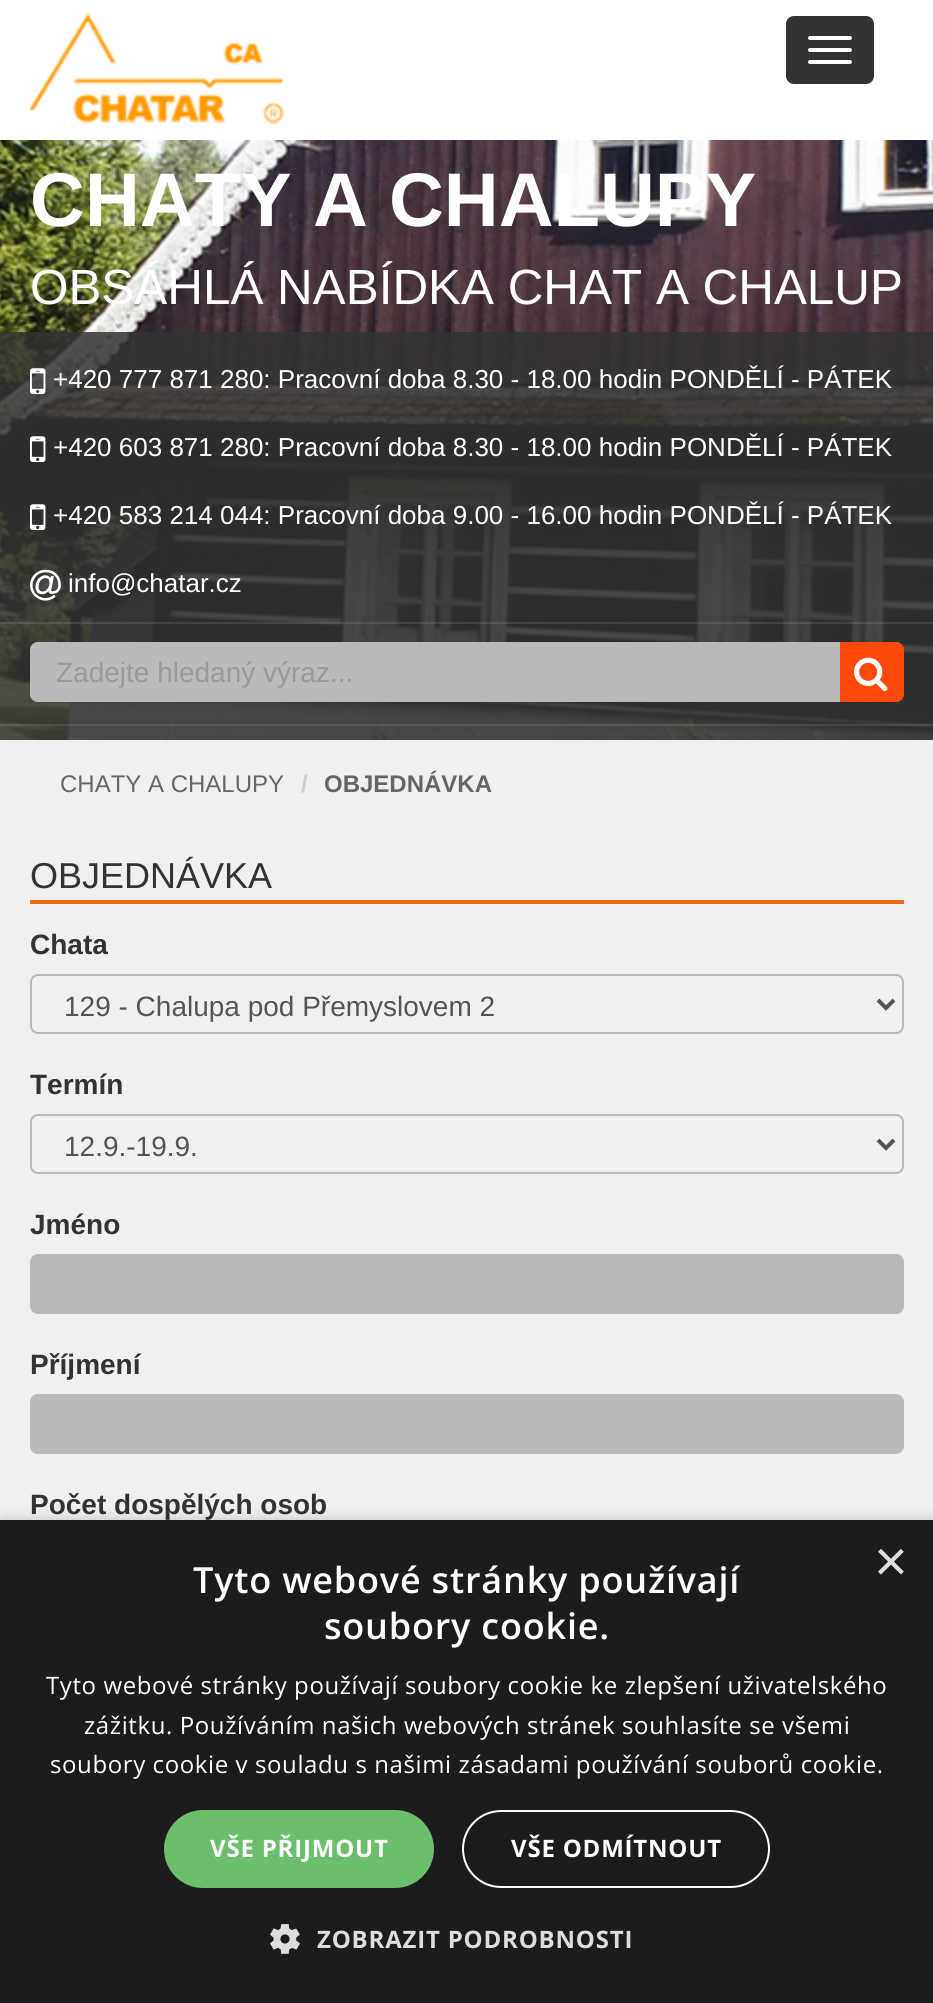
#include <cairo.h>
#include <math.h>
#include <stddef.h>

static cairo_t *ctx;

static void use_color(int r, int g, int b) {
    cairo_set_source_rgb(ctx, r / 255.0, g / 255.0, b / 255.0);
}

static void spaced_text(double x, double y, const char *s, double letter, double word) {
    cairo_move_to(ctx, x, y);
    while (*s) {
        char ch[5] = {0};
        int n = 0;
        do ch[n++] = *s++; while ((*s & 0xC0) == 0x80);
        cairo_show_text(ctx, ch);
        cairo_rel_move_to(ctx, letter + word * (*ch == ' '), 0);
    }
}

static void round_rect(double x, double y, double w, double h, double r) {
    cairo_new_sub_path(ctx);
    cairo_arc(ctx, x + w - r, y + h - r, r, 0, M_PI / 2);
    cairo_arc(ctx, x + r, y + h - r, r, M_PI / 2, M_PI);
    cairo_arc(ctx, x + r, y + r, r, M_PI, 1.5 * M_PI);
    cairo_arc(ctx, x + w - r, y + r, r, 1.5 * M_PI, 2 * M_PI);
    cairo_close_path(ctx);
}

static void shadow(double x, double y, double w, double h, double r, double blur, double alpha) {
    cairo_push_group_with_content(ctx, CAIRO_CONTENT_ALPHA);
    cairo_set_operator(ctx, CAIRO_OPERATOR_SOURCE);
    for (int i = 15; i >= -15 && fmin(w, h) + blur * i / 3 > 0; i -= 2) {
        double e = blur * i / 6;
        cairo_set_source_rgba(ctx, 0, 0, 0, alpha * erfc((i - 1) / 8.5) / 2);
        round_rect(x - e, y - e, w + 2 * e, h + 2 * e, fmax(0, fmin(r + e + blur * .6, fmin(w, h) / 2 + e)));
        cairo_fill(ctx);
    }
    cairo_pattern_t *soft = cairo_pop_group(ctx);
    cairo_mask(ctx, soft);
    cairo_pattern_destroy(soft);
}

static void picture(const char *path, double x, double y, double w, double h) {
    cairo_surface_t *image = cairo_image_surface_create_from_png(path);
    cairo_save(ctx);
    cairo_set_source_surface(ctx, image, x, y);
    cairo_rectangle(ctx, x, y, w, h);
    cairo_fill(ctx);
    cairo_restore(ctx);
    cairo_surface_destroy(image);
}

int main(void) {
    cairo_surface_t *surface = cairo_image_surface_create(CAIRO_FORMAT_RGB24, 933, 2003);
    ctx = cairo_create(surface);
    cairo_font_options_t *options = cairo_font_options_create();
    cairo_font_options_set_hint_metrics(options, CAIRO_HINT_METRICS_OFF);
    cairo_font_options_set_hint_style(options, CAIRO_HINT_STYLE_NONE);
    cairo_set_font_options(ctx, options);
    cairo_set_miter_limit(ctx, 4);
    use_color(240, 240, 240);
    cairo_paint(ctx);
    use_color(255, 255, 255);
    cairo_rectangle(ctx, 0, 0, 933, 140);
    cairo_fill(ctx);
    picture("img1.png", 30, 11, 254, 114);
    use_color(51, 51, 51);
    round_rect(787, 17, 86, 66, 7);
    cairo_fill_preserve(ctx);
    cairo_stroke(ctx);
    use_color(255, 255, 255);
    round_rect(808, 36, 44, 4, 2);
    cairo_fill(ctx);
    round_rect(808, 48, 44, 4, 2);
    cairo_fill(ctx);
    round_rect(808, 60, 44, 4, 2);
    cairo_fill(ctx);
    picture("img2.png", 0, 140, 933, 600);
    cairo_select_font_face(ctx, "Liberation Sans", CAIRO_FONT_SLANT_NORMAL, CAIRO_FONT_WEIGHT_BOLD);
    cairo_set_font_size(ctx, 76);
    cairo_move_to(ctx, 30, 226);
    cairo_show_text(ctx, "CHATY A CHALUPY");
    cairo_select_font_face(ctx, "Liberation Sans", CAIRO_FONT_SLANT_NORMAL, CAIRO_FONT_WEIGHT_NORMAL);
    cairo_set_font_size(ctx, 49.4);
    cairo_move_to(ctx, 30, 304);
    cairo_show_text(ctx, "OBSÁHLÁ NABÍDKA CHAT A CHALUP");
    cairo_set_source_rgba(ctx, 0.2, 0.2, 0.2, 0.85);
    cairo_rectangle(ctx, 0, 332, 933, 408);
    cairo_fill(ctx);
    picture("img3.png", 30, 368, 16, 26);
    cairo_set_font_size(ctx, 26);
    use_color(255, 255, 255);
    cairo_move_to(ctx, 53, 388);
    cairo_show_text(ctx, "+420 777 871 280: Pracovní doba 8.30 - 18.00 hodin PONDĚLÍ - PÁTEK");
    picture("img4.png", 30, 436, 16, 26);
    cairo_move_to(ctx, 53, 456);
    cairo_show_text(ctx, "+420 603 871 280: Pracovní doba 8.30 - 18.00 hodin PONDĚLÍ - PÁTEK");
    picture("img5.png", 30, 504, 16, 26);
    cairo_move_to(ctx, 53, 524);
    cairo_show_text(ctx, "+420 583 214 044: Pracovní doba 9.00 - 16.00 hodin PONDĚLÍ - PÁTEK");
    picture("img6.png", 30, 569, 31, 32);
    cairo_move_to(ctx, 68, 592);
    cairo_show_text(ctx, "info@chatar.cz");
    cairo_set_source_rgba(ctx, 1, 1, 1, 0.1);
    cairo_rectangle(ctx, 0, 724, 933, 2);
    cairo_fill(ctx);
    cairo_rectangle(ctx, 0, 622, 933, 2);
    cairo_fill(ctx);
    use_color(255, 74, 13);
    cairo_new_path(ctx);
    cairo_move_to(ctx, 839, 643);
    cairo_line_to(ctx, 896, 643);
    cairo_curve_to(ctx, 900, 643, 903, 646, 903, 650);
    cairo_line_to(ctx, 903, 694);
    cairo_curve_to(ctx, 903, 698, 900, 701, 896, 701);
    cairo_line_to(ctx, 839, 701);
    cairo_close_path(ctx);
    cairo_fill_preserve(ctx);
    cairo_stroke(ctx);
    use_color(186, 186, 186);
    cairo_new_path(ctx);
    cairo_move_to(ctx, 38, 643);
    cairo_line_to(ctx, 839, 643);
    cairo_line_to(ctx, 839, 701);
    cairo_line_to(ctx, 38, 701);
    cairo_curve_to(ctx, 34, 701, 31, 698, 31, 694);
    cairo_line_to(ctx, 31, 650);
    cairo_curve_to(ctx, 31, 646, 34, 643, 38, 643);
    cairo_close_path(ctx);
    cairo_fill_preserve(ctx);
    cairo_stroke(ctx);
    cairo_set_font_size(ctx, 28);
    use_color(153, 153, 153);
    cairo_move_to(ctx, 56, 682);
    cairo_show_text(ctx, "Zadejte hledaný výraz...");
    picture("img7.png", 854, 657, 34, 35);
    cairo_set_font_size(ctx, 24);
    use_color(102, 102, 102);
    cairo_move_to(ctx, 60, 792);
    cairo_show_text(ctx, "CHATY A CHALUPY");
    cairo_select_font_face(ctx, "Liberation Sans", CAIRO_FONT_SLANT_NORMAL, CAIRO_FONT_WEIGHT_BOLD);
    use_color(204, 204, 204);
    cairo_move_to(ctx, 301, 792);
    cairo_show_text(ctx, "/");
    use_color(102, 102, 102);
    cairo_move_to(ctx, 324, 792);
    cairo_show_text(ctx, "OBJEDNÁVKA");
    use_color(233, 109, 26);
    cairo_rectangle(ctx, 30, 900, 874, 4);
    cairo_fill(ctx);
    cairo_select_font_face(ctx, "Liberation Sans", CAIRO_FONT_SLANT_NORMAL, CAIRO_FONT_WEIGHT_NORMAL);
    cairo_set_font_size(ctx, 36);
    use_color(51, 51, 51);
    cairo_move_to(ctx, 30, 888);
    cairo_show_text(ctx, "OBJEDNÁVKA");
    cairo_select_font_face(ctx, "Liberation Sans", CAIRO_FONT_SLANT_NORMAL, CAIRO_FONT_WEIGHT_BOLD);
    cairo_set_font_size(ctx, 28);
    cairo_move_to(ctx, 30, 954);
    cairo_show_text(ctx, "Chata");
    round_rect(31, 975, 872, 58, 7);
    use_color(186, 186, 186);
    cairo_stroke(ctx);
    cairo_new_path(ctx);
    cairo_move_to(ctx, 878, 1000);
    cairo_line_to(ctx, 886, 1008);
    cairo_line_to(ctx, 894, 1000);
    use_color(85, 85, 85);
    cairo_set_line_width(ctx, 4);
    cairo_stroke(ctx);
    cairo_select_font_face(ctx, "Liberation Sans", CAIRO_FONT_SLANT_NORMAL, CAIRO_FONT_WEIGHT_NORMAL);
    cairo_move_to(ctx, 64, 1016);
    cairo_show_text(ctx, "129 - Chalupa pod Přemyslovem 2");
    cairo_select_font_face(ctx, "Liberation Sans", CAIRO_FONT_SLANT_NORMAL, CAIRO_FONT_WEIGHT_BOLD);
    use_color(51, 51, 51);
    cairo_move_to(ctx, 30, 1094);
    cairo_show_text(ctx, "Termín");
    round_rect(31, 1115, 872, 58, 7);
    use_color(186, 186, 186);
    cairo_set_line_width(ctx, 2);
    cairo_stroke(ctx);
    cairo_new_path(ctx);
    cairo_move_to(ctx, 878, 1140);
    cairo_line_to(ctx, 886, 1148);
    cairo_line_to(ctx, 894, 1140);
    use_color(85, 85, 85);
    cairo_set_line_width(ctx, 4);
    cairo_stroke(ctx);
    cairo_select_font_face(ctx, "Liberation Sans", CAIRO_FONT_SLANT_NORMAL, CAIRO_FONT_WEIGHT_NORMAL);
    cairo_move_to(ctx, 64, 1156);
    cairo_show_text(ctx, "12.9.-19.9.");
    cairo_select_font_face(ctx, "Liberation Sans", CAIRO_FONT_SLANT_NORMAL, CAIRO_FONT_WEIGHT_BOLD);
    use_color(51, 51, 51);
    cairo_move_to(ctx, 30, 1234);
    cairo_show_text(ctx, "Jméno");
    use_color(186, 186, 186);
    round_rect(31, 1255, 872, 58, 7);
    cairo_fill_preserve(ctx);
    cairo_set_line_width(ctx, 2);
    cairo_stroke(ctx);
    use_color(51, 51, 51);
    cairo_move_to(ctx, 30, 1374);
    cairo_show_text(ctx, "Příjmení");
    use_color(186, 186, 186);
    round_rect(31, 1395, 872, 58, 7);
    cairo_fill_preserve(ctx);
    cairo_stroke(ctx);
    use_color(51, 51, 51);
    cairo_move_to(ctx, 30, 1514);
    cairo_show_text(ctx, "Počet dospělých osob");
    use_color(0, 0, 0);
    shadow(2, 1524, 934, 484, 0, 8, 0.35);
    use_color(28, 28, 28);
    cairo_rectangle(ctx, 0, 1520, 933, 483);
    cairo_fill(ctx);
    cairo_select_font_face(ctx, "Liberation Sans", CAIRO_FONT_SLANT_NORMAL, CAIRO_FONT_WEIGHT_NORMAL);
    cairo_set_font_size(ctx, 58);
    use_color(221, 221, 221);
    cairo_move_to(ctx, 874, 1581);
    cairo_show_text(ctx, "×");
    cairo_select_font_face(ctx, "Open Sans SemiBold", CAIRO_FONT_SLANT_NORMAL, CAIRO_FONT_WEIGHT_NORMAL);
    cairo_set_font_size(ctx, 36);
    use_color(255, 255, 255);
    spaced_text(193, 1593, "Tyto webové stránky používají", 0.8, 0);
    spaced_text(324, 1639, "soubory cookie.", 0.8, 0);
    cairo_select_font_face(ctx, "Open Sans", CAIRO_FONT_SLANT_NORMAL, CAIRO_FONT_WEIGHT_NORMAL);
    cairo_set_font_size(ctx, 24);
    spaced_text(46, 1694, "Tyto webové stránky používají soubory cookie ke zlepšení uživatelského", 0.6, 0);
    spaced_text(84, 1734, "zážitku. Používáním našich webových stránek souhlasíte se všemi", 0.6, 0);
    spaced_text(50, 1773, "soubory cookie v souladu s našimi zásadami používání souborů cookie.", 0.6, 0);
    use_color(107, 190, 107);
    round_rect(164, 1810, 270, 78, 39);
    cairo_fill(ctx);
    cairo_select_font_face(ctx, "Open Sans", CAIRO_FONT_SLANT_NORMAL, CAIRO_FONT_WEIGHT_BOLD);
    use_color(255, 255, 255);
    spaced_text(210, 1857, "VŠE PŘIJMOUT", 0.8, 0);
    round_rect(463, 1811, 306, 76, 38);
    cairo_stroke(ctx);
    spaced_text(511, 1857, "VŠE ODMÍTNOUT", 0.8, 0);
    picture("img8.png", 270, 1924, 30, 30);
    use_color(221, 221, 221);
    spaced_text(317, 1948, "ZOBRAZIT PODROBNOSTI", 0.8, 0);
    cairo_surface_write_to_png(surface, "result.png");
    cairo_font_options_destroy(options);
    cairo_destroy(ctx);
    cairo_surface_destroy(surface);
    return 0;
}
